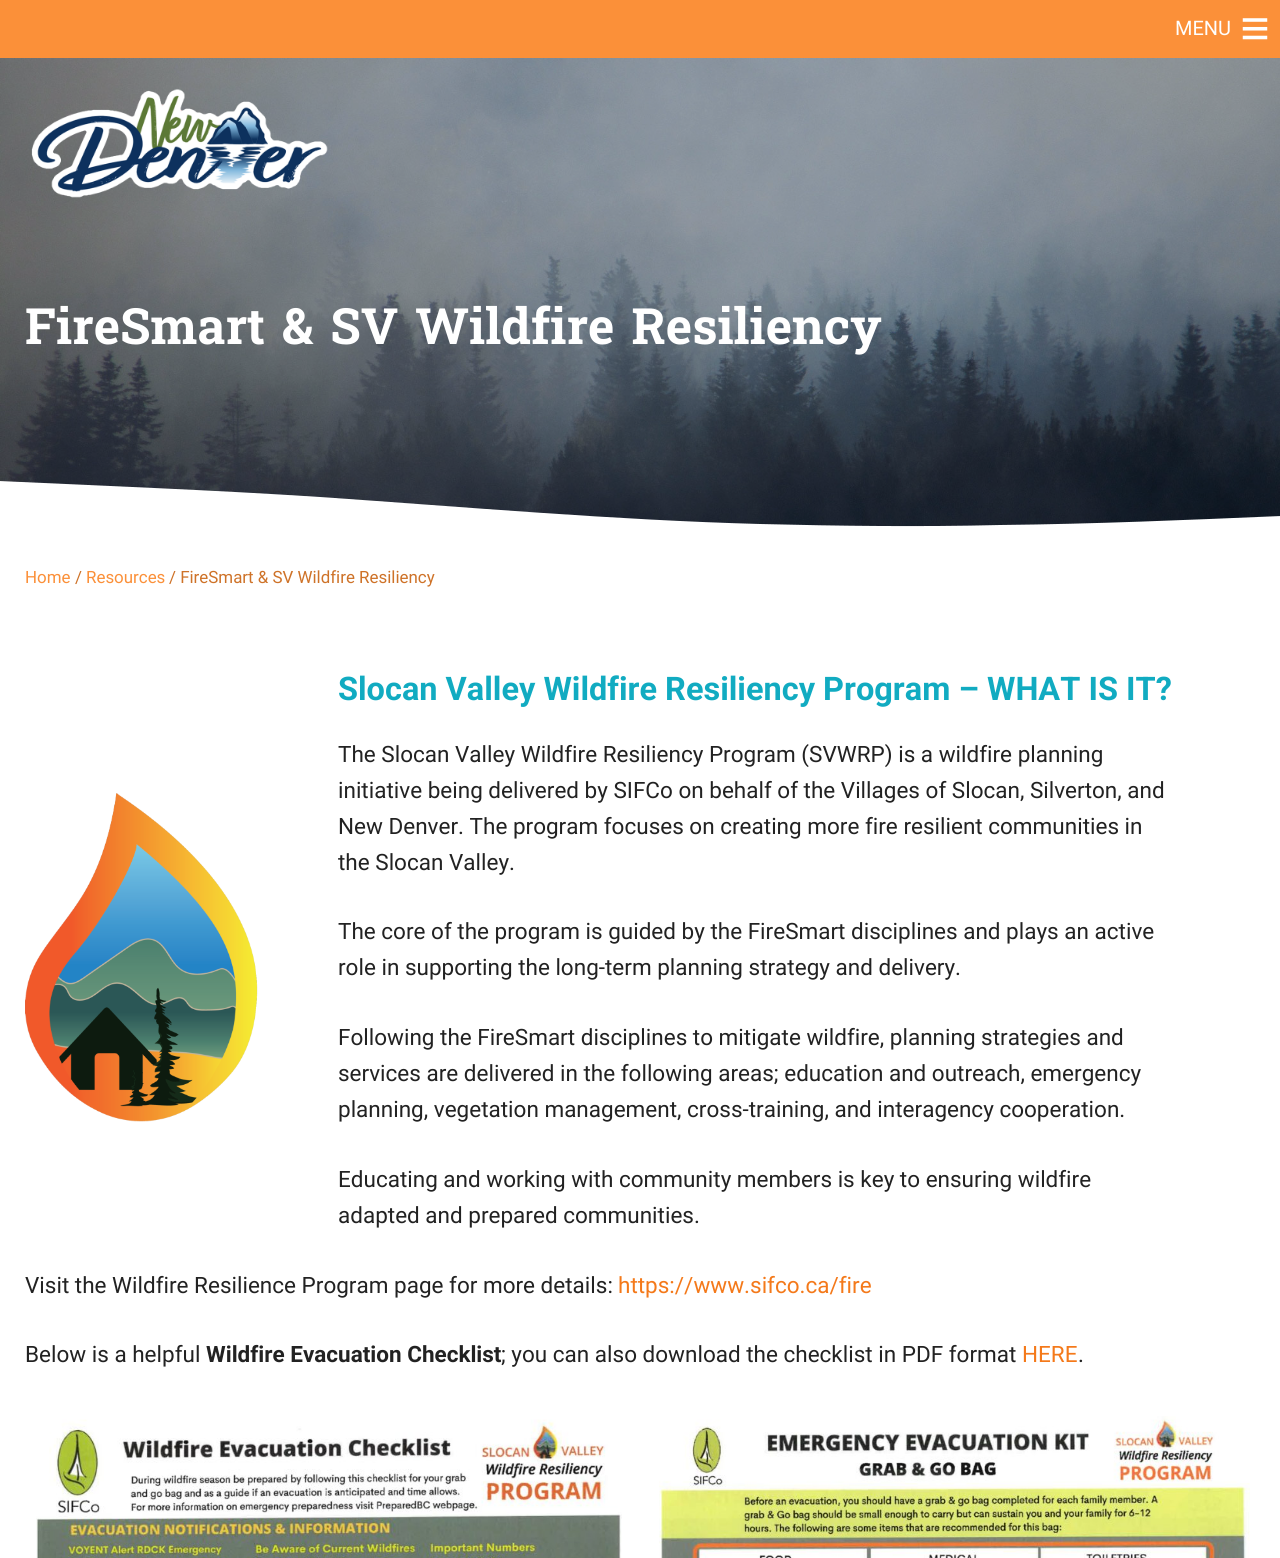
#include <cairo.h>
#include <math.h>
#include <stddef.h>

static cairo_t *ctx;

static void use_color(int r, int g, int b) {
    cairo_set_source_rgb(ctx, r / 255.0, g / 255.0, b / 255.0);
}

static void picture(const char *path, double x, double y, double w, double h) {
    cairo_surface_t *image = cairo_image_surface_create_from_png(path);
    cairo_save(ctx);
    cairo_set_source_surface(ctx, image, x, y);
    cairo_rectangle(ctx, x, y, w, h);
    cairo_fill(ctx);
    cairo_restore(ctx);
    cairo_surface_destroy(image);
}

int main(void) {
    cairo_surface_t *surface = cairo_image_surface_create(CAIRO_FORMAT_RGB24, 1280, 1558);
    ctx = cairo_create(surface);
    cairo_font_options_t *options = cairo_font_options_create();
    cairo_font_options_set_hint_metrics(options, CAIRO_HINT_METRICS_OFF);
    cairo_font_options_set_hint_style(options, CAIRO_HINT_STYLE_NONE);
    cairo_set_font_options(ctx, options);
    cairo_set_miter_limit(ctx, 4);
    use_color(255, 255, 255);
    cairo_paint(ctx);
    use_color(251, 144, 57);
    cairo_rectangle(ctx, 0, 0, 1280, 58);
    cairo_fill(ctx);
    cairo_select_font_face(ctx, "Roboto", CAIRO_FONT_SLANT_NORMAL, CAIRO_FONT_WEIGHT_NORMAL);
    cairo_set_font_size(ctx, 20);
    use_color(255, 255, 255);
    cairo_move_to(ctx, 1175, 35);
    cairo_show_text(ctx, "MENU");
    picture("img1.png", 1242, 18, 26, 22);
    use_color(31, 48, 68);
    cairo_rectangle(ctx, 0, 58, 1280, 469);
    cairo_fill(ctx);
    picture("img3.png", 0, 58, 1280, 469);
    picture("img2.png", 31, 89, 297, 109);
    cairo_select_font_face(ctx, "Suwannaphum", CAIRO_FONT_SLANT_NORMAL, CAIRO_FONT_WEIGHT_BOLD);
    cairo_set_font_size(ctx, 50);
    use_color(255, 255, 255);
    cairo_move_to(ctx, 25, 344);
    cairo_show_text(ctx, "FireSmart & SV Wildfire Resiliency");
    cairo_save(ctx);
    cairo_rectangle(ctx, 0, 481, 1280, 49);
    cairo_clip(ctx);
    cairo_new_path(ctx);
    cairo_move_to(ctx, 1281, 516);
    cairo_curve_to(ctx, 1187, 520, 1094, 524, 1000, 525);
    cairo_curve_to(ctx, 920, 527, 840, 526, 760, 524);
    cairo_curve_to(ctx, 613, 520, 466, 507, 320, 497);
    cairo_curve_to(ctx, 213, 490, 106, 486, -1, 481);
    cairo_line_to(ctx, -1, 531);
    cairo_line_to(ctx, 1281, 531);
    cairo_close_path(ctx);
    cairo_fill(ctx);
    cairo_restore(ctx);
    cairo_select_font_face(ctx, "Roboto", CAIRO_FONT_SLANT_NORMAL, CAIRO_FONT_WEIGHT_NORMAL);
    cairo_set_font_size(ctx, 16.9);
    use_color(251, 144, 57);
    cairo_move_to(ctx, 25, 583);
    cairo_show_text(ctx, "Home");
    use_color(206, 114, 40);
    cairo_move_to(ctx, 75, 583);
    cairo_show_text(ctx, "/");
    use_color(251, 144, 57);
    cairo_move_to(ctx, 86, 583);
    cairo_show_text(ctx, "Resources");
    use_color(206, 114, 40);
    cairo_move_to(ctx, 169, 583);
    cairo_show_text(ctx, "/ FireSmart & SV Wildfire Resiliency");
    picture("img4.png", 25, 793, 233, 329);
    cairo_select_font_face(ctx, "Roboto", CAIRO_FONT_SLANT_NORMAL, CAIRO_FONT_WEIGHT_BOLD);
    cairo_set_font_size(ctx, 32.5);
    use_color(17, 171, 193);
    cairo_move_to(ctx, 338, 700);
    cairo_show_text(ctx, "Slocan Valley Wildfire Resiliency Program – WHAT IS IT?");
    cairo_select_font_face(ctx, "Roboto", CAIRO_FONT_SLANT_NORMAL, CAIRO_FONT_WEIGHT_NORMAL);
    cairo_set_font_size(ctx, 22.5);
    use_color(34, 34, 34);
    cairo_move_to(ctx, 338, 762);
    cairo_show_text(ctx, "The Slocan Valley Wildfire Resiliency Program (SVWRP) is a wildfire planning");
    cairo_move_to(ctx, 338, 798);
    cairo_show_text(ctx, "initiative being delivered by SIFCo on behalf of the Villages of Slocan, Silverton, and");
    cairo_move_to(ctx, 338, 834);
    cairo_show_text(ctx, "New Denver. The program focuses on creating more fire resilient communities in");
    cairo_move_to(ctx, 338, 870);
    cairo_show_text(ctx, "the Slocan Valley.");
    cairo_move_to(ctx, 338, 939);
    cairo_show_text(ctx, "The core of the program is guided by the FireSmart disciplines and plays an active");
    cairo_move_to(ctx, 338, 975);
    cairo_show_text(ctx, "role in supporting the long-term planning strategy and delivery.");
    cairo_move_to(ctx, 338, 1045);
    cairo_show_text(ctx, "Following the FireSmart disciplines to mitigate wildfire, planning strategies and");
    cairo_move_to(ctx, 338, 1081);
    cairo_show_text(ctx, "services are delivered in the following areas; education and outreach, emergency");
    cairo_move_to(ctx, 338, 1117);
    cairo_show_text(ctx, "planning, vegetation management, cross-training, and interagency cooperation.");
    cairo_move_to(ctx, 338, 1187);
    cairo_show_text(ctx, "Educating and working with community members is key to ensuring wildfire");
    cairo_move_to(ctx, 338, 1223);
    cairo_show_text(ctx, "adapted and prepared communities.");
    cairo_move_to(ctx, 25, 1293);
    cairo_show_text(ctx, "Visit the Wildfire Resilience Program page for more details:");
    use_color(244, 121, 26);
    cairo_move_to(ctx, 618, 1293);
    cairo_show_text(ctx, "https://www.sifco.ca/fire");
    use_color(34, 34, 34);
    cairo_move_to(ctx, 25, 1362);
    cairo_show_text(ctx, "Below is a helpful");
    cairo_select_font_face(ctx, "Roboto", CAIRO_FONT_SLANT_NORMAL, CAIRO_FONT_WEIGHT_BOLD);
    cairo_move_to(ctx, 206, 1362);
    cairo_show_text(ctx, "Wildfire Evacuation Checklist");
    cairo_select_font_face(ctx, "Roboto", CAIRO_FONT_SLANT_NORMAL, CAIRO_FONT_WEIGHT_NORMAL);
    cairo_move_to(ctx, 501, 1362);
    cairo_show_text(ctx, "; you can also download the checklist in PDF format");
    use_color(244, 121, 26);
    cairo_move_to(ctx, 1022, 1362);
    cairo_show_text(ctx, "HERE");
    use_color(34, 34, 34);
    cairo_move_to(ctx, 1078, 1362);
    cairo_show_text(ctx, ".");
    picture("img5.png", 36, 1419, 586, 139);
    picture("img6.png", 659, 1416, 591, 142);
    cairo_surface_write_to_png(surface, "result.png");
    cairo_font_options_destroy(options);
    cairo_destroy(ctx);
    cairo_surface_destroy(surface);
    return 0;
}
